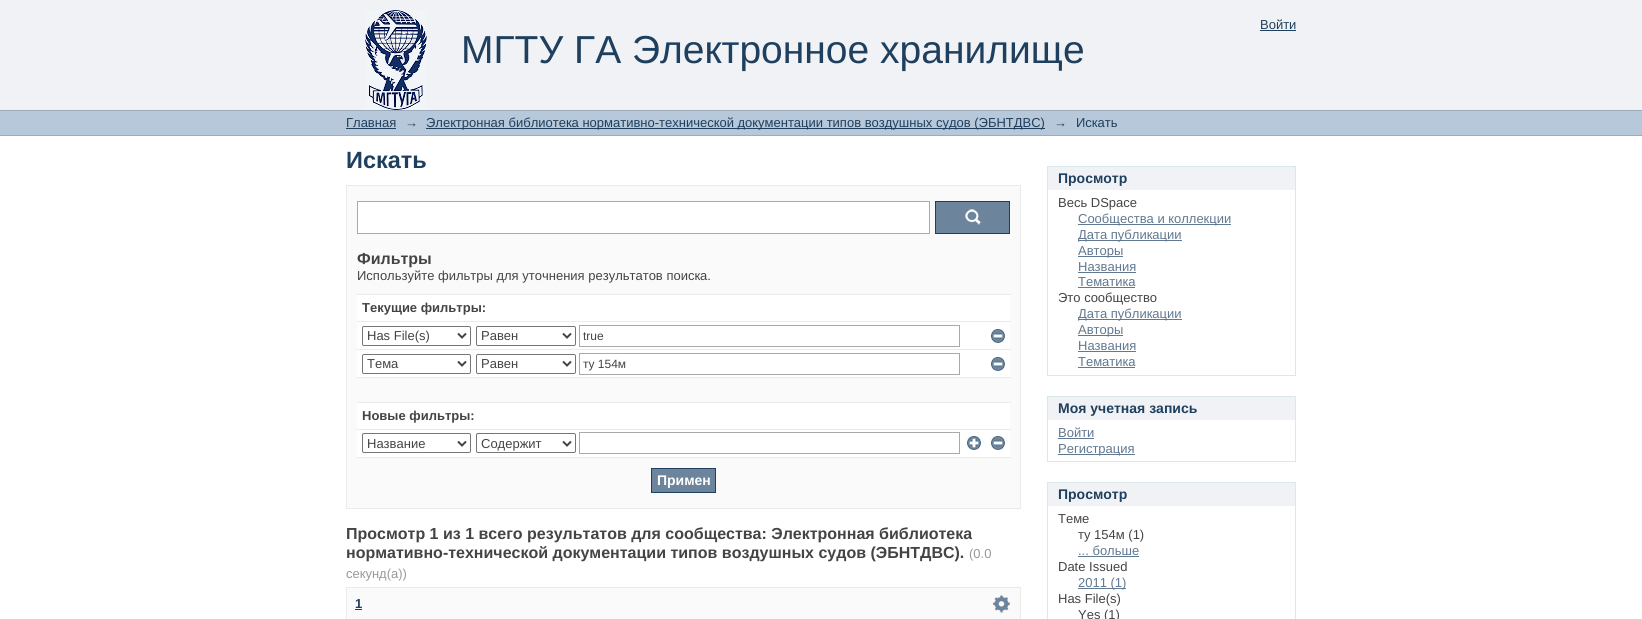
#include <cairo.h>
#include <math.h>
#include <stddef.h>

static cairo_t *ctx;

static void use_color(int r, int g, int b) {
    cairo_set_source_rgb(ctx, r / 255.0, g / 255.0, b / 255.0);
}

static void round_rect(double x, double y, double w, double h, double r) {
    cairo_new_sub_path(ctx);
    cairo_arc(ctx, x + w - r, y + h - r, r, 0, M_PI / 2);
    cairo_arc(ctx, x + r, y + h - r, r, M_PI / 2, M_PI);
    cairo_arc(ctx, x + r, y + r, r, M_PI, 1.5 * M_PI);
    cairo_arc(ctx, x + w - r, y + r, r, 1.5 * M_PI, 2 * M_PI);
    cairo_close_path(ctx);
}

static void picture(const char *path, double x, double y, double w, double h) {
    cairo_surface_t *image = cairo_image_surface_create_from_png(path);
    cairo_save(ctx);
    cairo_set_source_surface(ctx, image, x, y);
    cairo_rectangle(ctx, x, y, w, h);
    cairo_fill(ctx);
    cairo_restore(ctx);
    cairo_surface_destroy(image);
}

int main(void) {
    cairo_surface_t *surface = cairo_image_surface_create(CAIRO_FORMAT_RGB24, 1642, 619);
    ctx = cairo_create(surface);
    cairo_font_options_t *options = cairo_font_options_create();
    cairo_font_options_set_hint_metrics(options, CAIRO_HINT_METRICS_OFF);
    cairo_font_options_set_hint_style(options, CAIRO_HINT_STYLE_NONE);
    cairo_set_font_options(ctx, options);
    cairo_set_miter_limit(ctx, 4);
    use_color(255, 255, 255);
    cairo_paint(ctx);
    use_color(240, 242, 245);
    cairo_rectangle(ctx, 0, 0, 1642, 110);
    cairo_fill(ctx);
    cairo_select_font_face(ctx, "Liberation Sans", CAIRO_FONT_SLANT_NORMAL, CAIRO_FONT_WEIGHT_NORMAL);
    cairo_set_font_size(ctx, 13);
    use_color(31, 63, 94);
    cairo_move_to(ctx, 1260, 29);
    cairo_show_text(ctx, "Войти");
    cairo_rectangle(ctx, 1260, 30, 36, 1);
    cairo_fill(ctx);
    picture("img1.png", 365, 10, 62, 100);
    cairo_set_font_size(ctx, 39);
    cairo_move_to(ctx, 461, 63);
    cairo_show_text(ctx, "МГТУ ГА Электронное хранилище");
    use_color(182, 200, 217);
    cairo_rectangle(ctx, 0, 111, 1642, 24);
    cairo_fill(ctx);
    use_color(156, 172, 186);
    cairo_rectangle(ctx, 0, 110, 1642, 1);
    cairo_fill(ctx);
    cairo_rectangle(ctx, 0, 135, 1642, 1);
    cairo_fill(ctx);
    cairo_set_font_size(ctx, 13);
    use_color(31, 63, 94);
    cairo_move_to(ctx, 346, 127);
    cairo_show_text(ctx, "Главная");
    cairo_rectangle(ctx, 346, 128, 50, 1);
    cairo_fill(ctx);
    cairo_move_to(ctx, 405, 127);
    cairo_show_text(ctx, "→");
    cairo_rectangle(ctx, 426, 128, 619, 1);
    cairo_fill(ctx);
    cairo_move_to(ctx, 426, 127);
    cairo_show_text(ctx, "Электронная библиотека нормативно-технической документации типов воздушных судов (ЭБНТДВС)");
    cairo_move_to(ctx, 1054, 127);
    cairo_show_text(ctx, "→");
    cairo_move_to(ctx, 1076, 127);
    cairo_show_text(ctx, "Искать");
    cairo_select_font_face(ctx, "Liberation Sans", CAIRO_FONT_SLANT_NORMAL, CAIRO_FONT_WEIGHT_BOLD);
    cairo_set_font_size(ctx, 23.5);
    cairo_move_to(ctx, 346, 168);
    cairo_show_text(ctx, "Искать");
    use_color(250, 250, 250);
    cairo_rectangle(ctx, 346.5, 185.5, 674, 323);
    cairo_fill_preserve(ctx);
    use_color(235, 235, 235);
    cairo_set_line_width(ctx, 1);
    cairo_stroke(ctx);
    use_color(255, 255, 255);
    cairo_rectangle(ctx, 357.5, 201.5, 572, 32);
    cairo_fill_preserve(ctx);
    use_color(170, 170, 170);
    cairo_stroke(ctx);
    use_color(109, 133, 156);
    cairo_rectangle(ctx, 936, 202, 73, 31);
    cairo_fill(ctx);
    picture("img2.png", 965, 209, 16, 16);
    cairo_rectangle(ctx, 935.5, 201.5, 74, 32);
    use_color(31, 63, 94);
    cairo_stroke(ctx);
    cairo_set_font_size(ctx, 16);
    use_color(68, 68, 68);
    cairo_move_to(ctx, 357, 264);
    cairo_show_text(ctx, "Фильтры");
    cairo_select_font_face(ctx, "Liberation Sans", CAIRO_FONT_SLANT_NORMAL, CAIRO_FONT_WEIGHT_NORMAL);
    cairo_set_font_size(ctx, 13);
    cairo_move_to(ctx, 357, 280);
    cairo_show_text(ctx, "Используйте фильтры для уточнения результатов поиска.");
    use_color(255, 255, 255);
    cairo_rectangle(ctx, 357, 295, 653, 162);
    cairo_fill(ctx);
    use_color(235, 235, 235);
    cairo_rectangle(ctx, 357, 294, 654, 1);
    cairo_fill(ctx);
    cairo_select_font_face(ctx, "Liberation Sans", CAIRO_FONT_SLANT_NORMAL, CAIRO_FONT_WEIGHT_BOLD);
    use_color(68, 68, 68);
    cairo_move_to(ctx, 362, 312);
    cairo_show_text(ctx, "Текущие фильтры:");
    use_color(235, 235, 235);
    cairo_rectangle(ctx, 357, 321, 654, 1);
    cairo_fill(ctx);
    round_rect(362.5, 326.5, 108, 19, 1.5);
    use_color(118, 118, 118);
    cairo_stroke(ctx);
    cairo_new_path(ctx);
    cairo_move_to(ctx, 458, 333.5);
    cairo_line_to(ctx, 462, 337.5);
    cairo_line_to(ctx, 466, 333.5);
    use_color(68, 68, 68);
    cairo_set_line_width(ctx, 2);
    cairo_stroke(ctx);
    cairo_select_font_face(ctx, "Liberation Sans", CAIRO_FONT_SLANT_NORMAL, CAIRO_FONT_WEIGHT_NORMAL);
    cairo_move_to(ctx, 367, 340);
    cairo_show_text(ctx, "Has File(s)");
    round_rect(476.5, 326.5, 99, 19, 1.5);
    use_color(118, 118, 118);
    cairo_set_line_width(ctx, 1);
    cairo_stroke(ctx);
    cairo_new_path(ctx);
    cairo_move_to(ctx, 563, 333.5);
    cairo_line_to(ctx, 567, 337.5);
    cairo_line_to(ctx, 571, 333.5);
    use_color(68, 68, 68);
    cairo_set_line_width(ctx, 2);
    cairo_stroke(ctx);
    cairo_move_to(ctx, 481, 340);
    cairo_show_text(ctx, "Равен");
    cairo_rectangle(ctx, 579.5, 325.5, 380, 21);
    use_color(170, 170, 170);
    cairo_set_line_width(ctx, 1);
    cairo_stroke(ctx);
    cairo_set_font_size(ctx, 12);
    use_color(68, 68, 68);
    cairo_move_to(ctx, 583, 340);
    cairo_show_text(ctx, "true");
    picture("img3.png", 991, 329, 14, 14);
    use_color(235, 235, 235);
    cairo_rectangle(ctx, 357, 349, 654, 1);
    cairo_fill(ctx);
    round_rect(362.5, 354.5, 108, 19, 1.5);
    use_color(118, 118, 118);
    cairo_stroke(ctx);
    cairo_new_path(ctx);
    cairo_move_to(ctx, 458, 361.5);
    cairo_line_to(ctx, 462, 365.5);
    cairo_line_to(ctx, 466, 361.5);
    use_color(68, 68, 68);
    cairo_set_line_width(ctx, 2);
    cairo_stroke(ctx);
    cairo_set_font_size(ctx, 13);
    cairo_move_to(ctx, 367, 368);
    cairo_show_text(ctx, "Тема");
    round_rect(476.5, 354.5, 99, 19, 1.5);
    use_color(118, 118, 118);
    cairo_set_line_width(ctx, 1);
    cairo_stroke(ctx);
    cairo_new_path(ctx);
    cairo_move_to(ctx, 563, 361.5);
    cairo_line_to(ctx, 567, 365.5);
    cairo_line_to(ctx, 571, 361.5);
    use_color(68, 68, 68);
    cairo_set_line_width(ctx, 2);
    cairo_stroke(ctx);
    cairo_move_to(ctx, 481, 368);
    cairo_show_text(ctx, "Равен");
    cairo_rectangle(ctx, 579.5, 353.5, 380, 21);
    use_color(170, 170, 170);
    cairo_set_line_width(ctx, 1);
    cairo_stroke(ctx);
    cairo_set_font_size(ctx, 12);
    use_color(68, 68, 68);
    cairo_move_to(ctx, 583, 368);
    cairo_show_text(ctx, "ту 154м");
    picture("img3.png", 991, 357, 14, 14);
    use_color(250, 250, 250);
    cairo_rectangle(ctx, 357, 378, 653, 24);
    cairo_fill(ctx);
    use_color(235, 235, 235);
    cairo_rectangle(ctx, 357, 377, 654, 1);
    cairo_fill(ctx);
    cairo_rectangle(ctx, 357, 402, 654, 1);
    cairo_fill(ctx);
    cairo_select_font_face(ctx, "Liberation Sans", CAIRO_FONT_SLANT_NORMAL, CAIRO_FONT_WEIGHT_BOLD);
    cairo_set_font_size(ctx, 13);
    use_color(68, 68, 68);
    cairo_move_to(ctx, 362, 420);
    cairo_show_text(ctx, "Новые фильтры:");
    use_color(235, 235, 235);
    cairo_rectangle(ctx, 357, 429, 654, 1);
    cairo_fill(ctx);
    round_rect(362.5, 433.5, 108, 19, 1.5);
    use_color(118, 118, 118);
    cairo_stroke(ctx);
    cairo_new_path(ctx);
    cairo_move_to(ctx, 458, 441.5);
    cairo_line_to(ctx, 462, 445.5);
    cairo_line_to(ctx, 466, 441.5);
    use_color(68, 68, 68);
    cairo_set_line_width(ctx, 2);
    cairo_stroke(ctx);
    cairo_select_font_face(ctx, "Liberation Sans", CAIRO_FONT_SLANT_NORMAL, CAIRO_FONT_WEIGHT_NORMAL);
    cairo_move_to(ctx, 367, 448);
    cairo_show_text(ctx, "Название");
    round_rect(476.5, 433.5, 99, 19, 1.5);
    use_color(118, 118, 118);
    cairo_set_line_width(ctx, 1);
    cairo_stroke(ctx);
    cairo_new_path(ctx);
    cairo_move_to(ctx, 563, 441.5);
    cairo_line_to(ctx, 567, 445.5);
    cairo_line_to(ctx, 571, 441.5);
    use_color(68, 68, 68);
    cairo_set_line_width(ctx, 2);
    cairo_stroke(ctx);
    cairo_move_to(ctx, 481, 448);
    cairo_show_text(ctx, "Содержит");
    cairo_rectangle(ctx, 579.5, 432.5, 380, 21);
    use_color(170, 170, 170);
    cairo_set_line_width(ctx, 1);
    cairo_stroke(ctx);
    picture("img4.png", 967, 436, 14, 14);
    picture("img3.png", 991, 436, 14, 14);
    use_color(235, 235, 235);
    cairo_rectangle(ctx, 357, 457, 654, 1);
    cairo_fill(ctx);
    use_color(109, 133, 156);
    cairo_rectangle(ctx, 651.5, 468.5, 64, 24);
    cairo_fill_preserve(ctx);
    use_color(31, 63, 94);
    cairo_stroke(ctx);
    cairo_select_font_face(ctx, "Liberation Sans", CAIRO_FONT_SLANT_NORMAL, CAIRO_FONT_WEIGHT_BOLD);
    cairo_set_font_size(ctx, 14);
    use_color(255, 255, 255);
    cairo_move_to(ctx, 657, 485);
    cairo_show_text(ctx, "Примен");
    cairo_set_font_size(ctx, 16);
    use_color(68, 68, 68);
    cairo_move_to(ctx, 346, 539);
    cairo_show_text(ctx, "Просмотр 1 из 1 всего результатов для сообщества: Электронная библиотека");
    cairo_move_to(ctx, 346, 558);
    cairo_show_text(ctx, "нормативно-технической документации типов воздушных судов (ЭБНТДВС).");
    cairo_select_font_face(ctx, "Liberation Sans", CAIRO_FONT_SLANT_NORMAL, CAIRO_FONT_WEIGHT_NORMAL);
    cairo_set_font_size(ctx, 13);
    use_color(153, 153, 153);
    cairo_move_to(ctx, 969, 558);
    cairo_show_text(ctx, "(0.0");
    cairo_move_to(ctx, 346, 578);
    cairo_show_text(ctx, "секунд(а))");
    use_color(250, 250, 250);
    cairo_rectangle(ctx, 346.5, 587.5, 674, 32);
    cairo_fill_preserve(ctx);
    use_color(235, 235, 235);
    cairo_stroke(ctx);
    cairo_select_font_face(ctx, "Liberation Sans", CAIRO_FONT_SLANT_NORMAL, CAIRO_FONT_WEIGHT_BOLD);
    use_color(31, 63, 94);
    cairo_move_to(ctx, 355, 608);
    cairo_show_text(ctx, "1");
    cairo_rectangle(ctx, 355, 609, 7, 1);
    cairo_fill(ctx);
    picture("img5.png", 993, 595, 17, 18);
    use_color(240, 242, 245);
    cairo_rectangle(ctx, 1048, 167, 247, 23);
    cairo_fill(ctx);
    use_color(216, 232, 235);
    cairo_rectangle(ctx, 1047, 166, 249, 1);
    cairo_fill(ctx);
    cairo_rectangle(ctx, 1295, 166, 1, 210);
    cairo_fill(ctx);
    cairo_rectangle(ctx, 1047, 166, 1, 24);
    cairo_fill(ctx);
    cairo_set_font_size(ctx, 14);
    use_color(31, 63, 94);
    cairo_move_to(ctx, 1058, 183);
    cairo_show_text(ctx, "Просмотр");
    use_color(216, 232, 235);
    cairo_rectangle(ctx, 1047, 375, 249, 1);
    cairo_fill(ctx);
    cairo_rectangle(ctx, 1047, 190, 1, 186);
    cairo_fill(ctx);
    cairo_select_font_face(ctx, "Liberation Sans", CAIRO_FONT_SLANT_NORMAL, CAIRO_FONT_WEIGHT_NORMAL);
    cairo_set_font_size(ctx, 13);
    use_color(68, 68, 68);
    cairo_move_to(ctx, 1058, 207);
    cairo_show_text(ctx, "Весь DSpace");
    use_color(96, 120, 144);
    cairo_rectangle(ctx, 1078, 224, 153, 1);
    cairo_fill(ctx);
    cairo_move_to(ctx, 1078, 223);
    cairo_show_text(ctx, "Сообщества и коллекции");
    cairo_rectangle(ctx, 1078, 240, 104, 1);
    cairo_fill(ctx);
    cairo_move_to(ctx, 1078, 239);
    cairo_show_text(ctx, "Дата публикации");
    cairo_rectangle(ctx, 1078, 256, 45, 1);
    cairo_fill(ctx);
    cairo_move_to(ctx, 1078, 255);
    cairo_show_text(ctx, "Авторы");
    cairo_move_to(ctx, 1078, 271);
    cairo_show_text(ctx, "Названия");
    cairo_rectangle(ctx, 1078, 272, 58, 1);
    cairo_fill(ctx);
    cairo_move_to(ctx, 1078, 286);
    cairo_show_text(ctx, "Тематика");
    cairo_rectangle(ctx, 1078, 287, 57, 1);
    cairo_fill(ctx);
    use_color(68, 68, 68);
    cairo_move_to(ctx, 1058, 302);
    cairo_show_text(ctx, "Это сообщество");
    use_color(96, 120, 144);
    cairo_rectangle(ctx, 1078, 319, 104, 1);
    cairo_fill(ctx);
    cairo_move_to(ctx, 1078, 318);
    cairo_show_text(ctx, "Дата публикации");
    cairo_rectangle(ctx, 1078, 335, 45, 1);
    cairo_fill(ctx);
    cairo_move_to(ctx, 1078, 334);
    cairo_show_text(ctx, "Авторы");
    cairo_move_to(ctx, 1078, 350);
    cairo_show_text(ctx, "Названия");
    cairo_rectangle(ctx, 1078, 351, 58, 1);
    cairo_fill(ctx);
    cairo_move_to(ctx, 1078, 366);
    cairo_show_text(ctx, "Тематика");
    cairo_rectangle(ctx, 1078, 367, 57, 1);
    cairo_fill(ctx);
    use_color(240, 242, 245);
    cairo_rectangle(ctx, 1048, 397, 247, 23);
    cairo_fill(ctx);
    use_color(216, 232, 235);
    cairo_rectangle(ctx, 1047, 396, 249, 1);
    cairo_fill(ctx);
    cairo_rectangle(ctx, 1295, 396, 1, 66);
    cairo_fill(ctx);
    cairo_rectangle(ctx, 1047, 396, 1, 24);
    cairo_fill(ctx);
    cairo_select_font_face(ctx, "Liberation Sans", CAIRO_FONT_SLANT_NORMAL, CAIRO_FONT_WEIGHT_BOLD);
    cairo_set_font_size(ctx, 14);
    use_color(31, 63, 94);
    cairo_move_to(ctx, 1058, 413);
    cairo_show_text(ctx, "Моя учетная запись");
    use_color(216, 232, 235);
    cairo_rectangle(ctx, 1047, 461, 249, 1);
    cairo_fill(ctx);
    cairo_rectangle(ctx, 1047, 420, 1, 42);
    cairo_fill(ctx);
    cairo_select_font_face(ctx, "Liberation Sans", CAIRO_FONT_SLANT_NORMAL, CAIRO_FONT_WEIGHT_NORMAL);
    cairo_set_font_size(ctx, 13);
    use_color(96, 120, 144);
    cairo_move_to(ctx, 1058, 437);
    cairo_show_text(ctx, "Войти");
    cairo_rectangle(ctx, 1058, 438, 36, 1);
    cairo_fill(ctx);
    cairo_rectangle(ctx, 1058, 454, 77, 1);
    cairo_fill(ctx);
    cairo_move_to(ctx, 1058, 453);
    cairo_show_text(ctx, "Регистрация");
    use_color(240, 242, 245);
    cairo_rectangle(ctx, 1048, 483, 247, 23);
    cairo_fill(ctx);
    use_color(216, 232, 235);
    cairo_rectangle(ctx, 1047, 482, 249, 1);
    cairo_fill(ctx);
    cairo_rectangle(ctx, 1295, 482, 1, 137);
    cairo_fill(ctx);
    cairo_rectangle(ctx, 1047, 482, 1, 137);
    cairo_fill(ctx);
    cairo_select_font_face(ctx, "Liberation Sans", CAIRO_FONT_SLANT_NORMAL, CAIRO_FONT_WEIGHT_BOLD);
    cairo_set_font_size(ctx, 14);
    use_color(31, 63, 94);
    cairo_move_to(ctx, 1058, 499);
    cairo_show_text(ctx, "Просмотр");
    cairo_select_font_face(ctx, "Liberation Sans", CAIRO_FONT_SLANT_NORMAL, CAIRO_FONT_WEIGHT_NORMAL);
    cairo_set_font_size(ctx, 13);
    use_color(68, 68, 68);
    cairo_move_to(ctx, 1058, 523);
    cairo_show_text(ctx, "Теме");
    cairo_move_to(ctx, 1078, 539);
    cairo_show_text(ctx, "ту 154м (1)");
    use_color(96, 120, 144);
    cairo_move_to(ctx, 1078, 555);
    cairo_show_text(ctx, "... больше");
    cairo_rectangle(ctx, 1078, 556, 61, 1);
    cairo_fill(ctx);
    use_color(68, 68, 68);
    cairo_move_to(ctx, 1058, 571);
    cairo_show_text(ctx, "Date Issued");
    use_color(96, 120, 144);
    cairo_rectangle(ctx, 1078, 588, 48, 1);
    cairo_fill(ctx);
    cairo_move_to(ctx, 1078, 587);
    cairo_show_text(ctx, "2011 (1)");
    use_color(68, 68, 68);
    cairo_move_to(ctx, 1058, 603);
    cairo_show_text(ctx, "Has File(s)");
    cairo_move_to(ctx, 1078, 619);
    cairo_show_text(ctx, "Yes (1)");
    cairo_surface_write_to_png(surface, "result.png");
    cairo_font_options_destroy(options);
    cairo_destroy(ctx);
    cairo_surface_destroy(surface);
    return 0;
}
